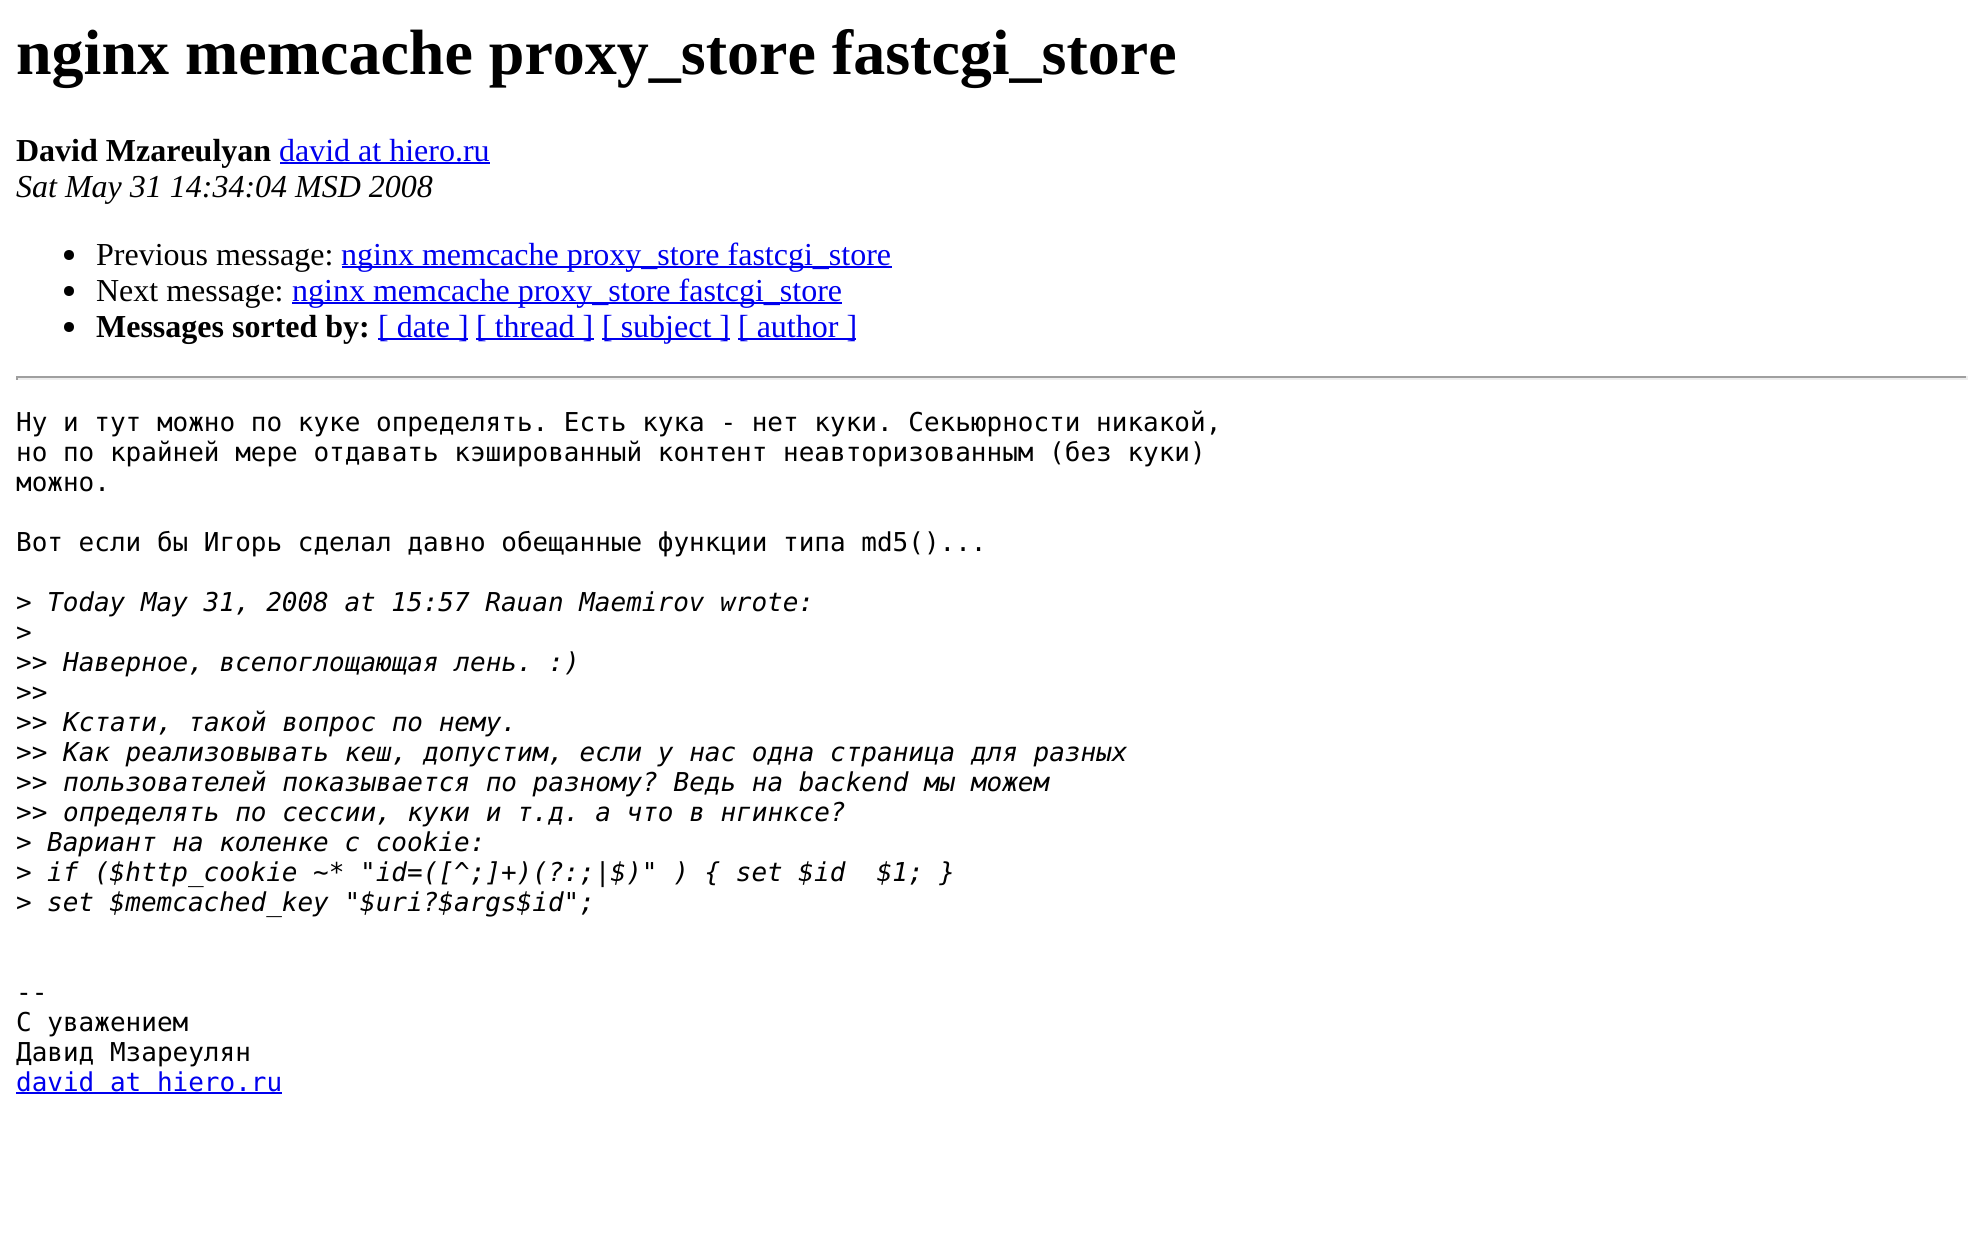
#include <cairo.h>
#include <math.h>
#include <stddef.h>

static cairo_t *ctx;

static void use_color(int r, int g, int b) {
    cairo_set_source_rgb(ctx, r / 255.0, g / 255.0, b / 255.0);
}

int main(void) {
    cairo_surface_t *surface = cairo_image_surface_create(CAIRO_FORMAT_RGB24, 1983, 1245);
    ctx = cairo_create(surface);
    cairo_font_options_t *options = cairo_font_options_create();
    cairo_font_options_set_hint_metrics(options, CAIRO_HINT_METRICS_OFF);
    cairo_font_options_set_hint_style(options, CAIRO_HINT_STYLE_NONE);
    cairo_set_font_options(ctx, options);
    cairo_set_miter_limit(ctx, 4);
    use_color(255, 255, 255);
    cairo_paint(ctx);
    cairo_select_font_face(ctx, "Liberation Serif", CAIRO_FONT_SLANT_NORMAL, CAIRO_FONT_WEIGHT_BOLD);
    cairo_set_font_size(ctx, 64);
    use_color(0, 0, 0);
    cairo_move_to(ctx, 16, 74);
    cairo_show_text(ctx, "nginx memcache proxy_store fastcgi_store");
    cairo_set_font_size(ctx, 32);
    cairo_move_to(ctx, 16, 161);
    cairo_show_text(ctx, "David Mzareulyan");
    cairo_select_font_face(ctx, "Liberation Serif", CAIRO_FONT_SLANT_NORMAL, CAIRO_FONT_WEIGHT_NORMAL);
    use_color(0, 0, 238);
    cairo_move_to(ctx, 279, 161);
    cairo_show_text(ctx, "david at hiero.ru");
    cairo_rectangle(ctx, 280, 162, 210, 2);
    cairo_fill(ctx);
    cairo_select_font_face(ctx, "Liberation Serif", CAIRO_FONT_SLANT_ITALIC, CAIRO_FONT_WEIGHT_NORMAL);
    use_color(0, 0, 0);
    cairo_move_to(ctx, 16, 197);
    cairo_show_text(ctx, "Sat May 31 14:34:04 MSD 2008");
    cairo_new_path(ctx);
    cairo_arc(ctx, 69, 255, 5, 0, 2 * M_PI);
    cairo_fill(ctx);
    cairo_select_font_face(ctx, "Liberation Serif", CAIRO_FONT_SLANT_NORMAL, CAIRO_FONT_WEIGHT_NORMAL);
    cairo_move_to(ctx, 96, 265);
    cairo_show_text(ctx, "Previous message:");
    use_color(0, 0, 238);
    cairo_rectangle(ctx, 342, 266, 550, 2);
    cairo_fill(ctx);
    cairo_move_to(ctx, 341, 265);
    cairo_show_text(ctx, "nginx memcache proxy_store fastcgi_store");
    use_color(0, 0, 0);
    cairo_new_path(ctx);
    cairo_arc(ctx, 69, 291, 5, 0, 2 * M_PI);
    cairo_fill(ctx);
    cairo_move_to(ctx, 96, 301);
    cairo_show_text(ctx, "Next message:");
    use_color(0, 0, 238);
    cairo_rectangle(ctx, 292, 302, 550, 2);
    cairo_fill(ctx);
    cairo_move_to(ctx, 292, 301);
    cairo_show_text(ctx, "nginx memcache proxy_store fastcgi_store");
    use_color(0, 0, 0);
    cairo_new_path(ctx);
    cairo_arc(ctx, 69, 327, 5, 0, 2 * M_PI);
    cairo_fill(ctx);
    cairo_select_font_face(ctx, "Liberation Serif", CAIRO_FONT_SLANT_NORMAL, CAIRO_FONT_WEIGHT_BOLD);
    cairo_move_to(ctx, 96, 337);
    cairo_show_text(ctx, "Messages sorted by:");
    use_color(0, 0, 238);
    cairo_rectangle(ctx, 378, 338, 90, 2);
    cairo_fill(ctx);
    cairo_select_font_face(ctx, "Liberation Serif", CAIRO_FONT_SLANT_NORMAL, CAIRO_FONT_WEIGHT_NORMAL);
    cairo_move_to(ctx, 378, 337);
    cairo_show_text(ctx, "[ date ]");
    cairo_rectangle(ctx, 476, 338, 118, 2);
    cairo_fill(ctx);
    cairo_move_to(ctx, 476, 337);
    cairo_show_text(ctx, "[ thread ]");
    cairo_rectangle(ctx, 602, 338, 128, 2);
    cairo_fill(ctx);
    cairo_move_to(ctx, 602, 337);
    cairo_show_text(ctx, "[ subject ]");
    cairo_rectangle(ctx, 738, 338, 118, 2);
    cairo_fill(ctx);
    cairo_move_to(ctx, 738, 337);
    cairo_show_text(ctx, "[ author ]");
    use_color(159, 159, 159);
    cairo_rectangle(ctx, 16, 376, 1952, 2);
    cairo_fill(ctx);
    use_color(238, 238, 238);
    cairo_rectangle(ctx, 1966, 376, 2, 4);
    cairo_fill(ctx);
    cairo_rectangle(ctx, 16, 378, 1952, 2);
    cairo_fill(ctx);
    use_color(159, 159, 159);
    cairo_rectangle(ctx, 16, 376, 2, 4);
    cairo_fill(ctx);
    cairo_select_font_face(ctx, "DejaVu Sans Mono", CAIRO_FONT_SLANT_NORMAL, CAIRO_FONT_WEIGHT_NORMAL);
    cairo_set_font_size(ctx, 26);
    use_color(0, 0, 0);
    cairo_move_to(ctx, 16, 431);
    cairo_show_text(ctx, "Ну и тут можно по куке определять. Есть кука - нет куки. Секьюрности никакой,");
    cairo_move_to(ctx, 16, 461);
    cairo_show_text(ctx, "но по крайней мере отдавать кэшированный контент неавторизованным (без куки)");
    cairo_move_to(ctx, 16, 491);
    cairo_show_text(ctx, "можно.");
    cairo_move_to(ctx, 16, 551);
    cairo_show_text(ctx, "Вот если бы Игорь сделал давно обещанные функции типа md5()...");
    cairo_move_to(ctx, 16, 611);
    cairo_show_text(ctx, ">");
    cairo_select_font_face(ctx, "DejaVu Sans Mono", CAIRO_FONT_SLANT_ITALIC, CAIRO_FONT_WEIGHT_NORMAL);
    cairo_move_to(ctx, 47, 611);
    cairo_show_text(ctx, "Today May 31, 2008 at 15:57 Rauan Maemirov wrote:");
    cairo_select_font_face(ctx, "DejaVu Sans Mono", CAIRO_FONT_SLANT_NORMAL, CAIRO_FONT_WEIGHT_NORMAL);
    cairo_move_to(ctx, 16, 641);
    cairo_show_text(ctx, ">");
    cairo_move_to(ctx, 16, 671);
    cairo_show_text(ctx, ">>");
    cairo_select_font_face(ctx, "DejaVu Sans Mono", CAIRO_FONT_SLANT_ITALIC, CAIRO_FONT_WEIGHT_NORMAL);
    cairo_move_to(ctx, 63, 671);
    cairo_show_text(ctx, "Наверное, всепоглощающая лень. :)");
    cairo_select_font_face(ctx, "DejaVu Sans Mono", CAIRO_FONT_SLANT_NORMAL, CAIRO_FONT_WEIGHT_NORMAL);
    cairo_move_to(ctx, 16, 701);
    cairo_show_text(ctx, ">>");
    cairo_move_to(ctx, 16, 731);
    cairo_show_text(ctx, ">>");
    cairo_select_font_face(ctx, "DejaVu Sans Mono", CAIRO_FONT_SLANT_ITALIC, CAIRO_FONT_WEIGHT_NORMAL);
    cairo_move_to(ctx, 63, 731);
    cairo_show_text(ctx, "Кстати, такой вопрос по нему.");
    cairo_select_font_face(ctx, "DejaVu Sans Mono", CAIRO_FONT_SLANT_NORMAL, CAIRO_FONT_WEIGHT_NORMAL);
    cairo_move_to(ctx, 16, 761);
    cairo_show_text(ctx, ">>");
    cairo_select_font_face(ctx, "DejaVu Sans Mono", CAIRO_FONT_SLANT_ITALIC, CAIRO_FONT_WEIGHT_NORMAL);
    cairo_move_to(ctx, 63, 761);
    cairo_show_text(ctx, "Как реализовывать кеш, допустим, если у нас одна страница для разных");
    cairo_select_font_face(ctx, "DejaVu Sans Mono", CAIRO_FONT_SLANT_NORMAL, CAIRO_FONT_WEIGHT_NORMAL);
    cairo_move_to(ctx, 16, 791);
    cairo_show_text(ctx, ">>");
    cairo_select_font_face(ctx, "DejaVu Sans Mono", CAIRO_FONT_SLANT_ITALIC, CAIRO_FONT_WEIGHT_NORMAL);
    cairo_move_to(ctx, 63, 791);
    cairo_show_text(ctx, "пользователей показывается по разному? Ведь на backend мы можем");
    cairo_select_font_face(ctx, "DejaVu Sans Mono", CAIRO_FONT_SLANT_NORMAL, CAIRO_FONT_WEIGHT_NORMAL);
    cairo_move_to(ctx, 16, 821);
    cairo_show_text(ctx, ">>");
    cairo_select_font_face(ctx, "DejaVu Sans Mono", CAIRO_FONT_SLANT_ITALIC, CAIRO_FONT_WEIGHT_NORMAL);
    cairo_move_to(ctx, 63, 821);
    cairo_show_text(ctx, "определять по сессии, куки и т.д. а что в нгинксе?");
    cairo_select_font_face(ctx, "DejaVu Sans Mono", CAIRO_FONT_SLANT_NORMAL, CAIRO_FONT_WEIGHT_NORMAL);
    cairo_move_to(ctx, 16, 851);
    cairo_show_text(ctx, ">");
    cairo_select_font_face(ctx, "DejaVu Sans Mono", CAIRO_FONT_SLANT_ITALIC, CAIRO_FONT_WEIGHT_NORMAL);
    cairo_move_to(ctx, 47, 851);
    cairo_show_text(ctx, "Вариант на коленке с cookie:");
    cairo_select_font_face(ctx, "DejaVu Sans Mono", CAIRO_FONT_SLANT_NORMAL, CAIRO_FONT_WEIGHT_NORMAL);
    cairo_move_to(ctx, 16, 881);
    cairo_show_text(ctx, ">");
    cairo_select_font_face(ctx, "DejaVu Sans Mono", CAIRO_FONT_SLANT_ITALIC, CAIRO_FONT_WEIGHT_NORMAL);
    cairo_move_to(ctx, 47, 881);
    cairo_show_text(ctx, "if ($http_cookie ~* \"id=([^;]+)(?:;|$)\" ) { set $id  $1; }");
    cairo_select_font_face(ctx, "DejaVu Sans Mono", CAIRO_FONT_SLANT_NORMAL, CAIRO_FONT_WEIGHT_NORMAL);
    cairo_move_to(ctx, 16, 911);
    cairo_show_text(ctx, ">");
    cairo_select_font_face(ctx, "DejaVu Sans Mono", CAIRO_FONT_SLANT_ITALIC, CAIRO_FONT_WEIGHT_NORMAL);
    cairo_move_to(ctx, 47, 911);
    cairo_show_text(ctx, "set $memcached_key \"$uri?$args$id\";");
    cairo_select_font_face(ctx, "DejaVu Sans Mono", CAIRO_FONT_SLANT_NORMAL, CAIRO_FONT_WEIGHT_NORMAL);
    cairo_move_to(ctx, 16, 1001);
    cairo_show_text(ctx, "--");
    cairo_move_to(ctx, 16, 1031);
    cairo_show_text(ctx, "С уважением");
    cairo_move_to(ctx, 16, 1061);
    cairo_show_text(ctx, "Давид Мзареулян");
    use_color(0, 0, 238);
    cairo_move_to(ctx, 16, 1091);
    cairo_show_text(ctx, "david at hiero.ru");
    cairo_rectangle(ctx, 16, 1092, 266, 2);
    cairo_fill(ctx);
    cairo_surface_write_to_png(surface, "result.png");
    cairo_font_options_destroy(options);
    cairo_destroy(ctx);
    cairo_surface_destroy(surface);
    return 0;
}
